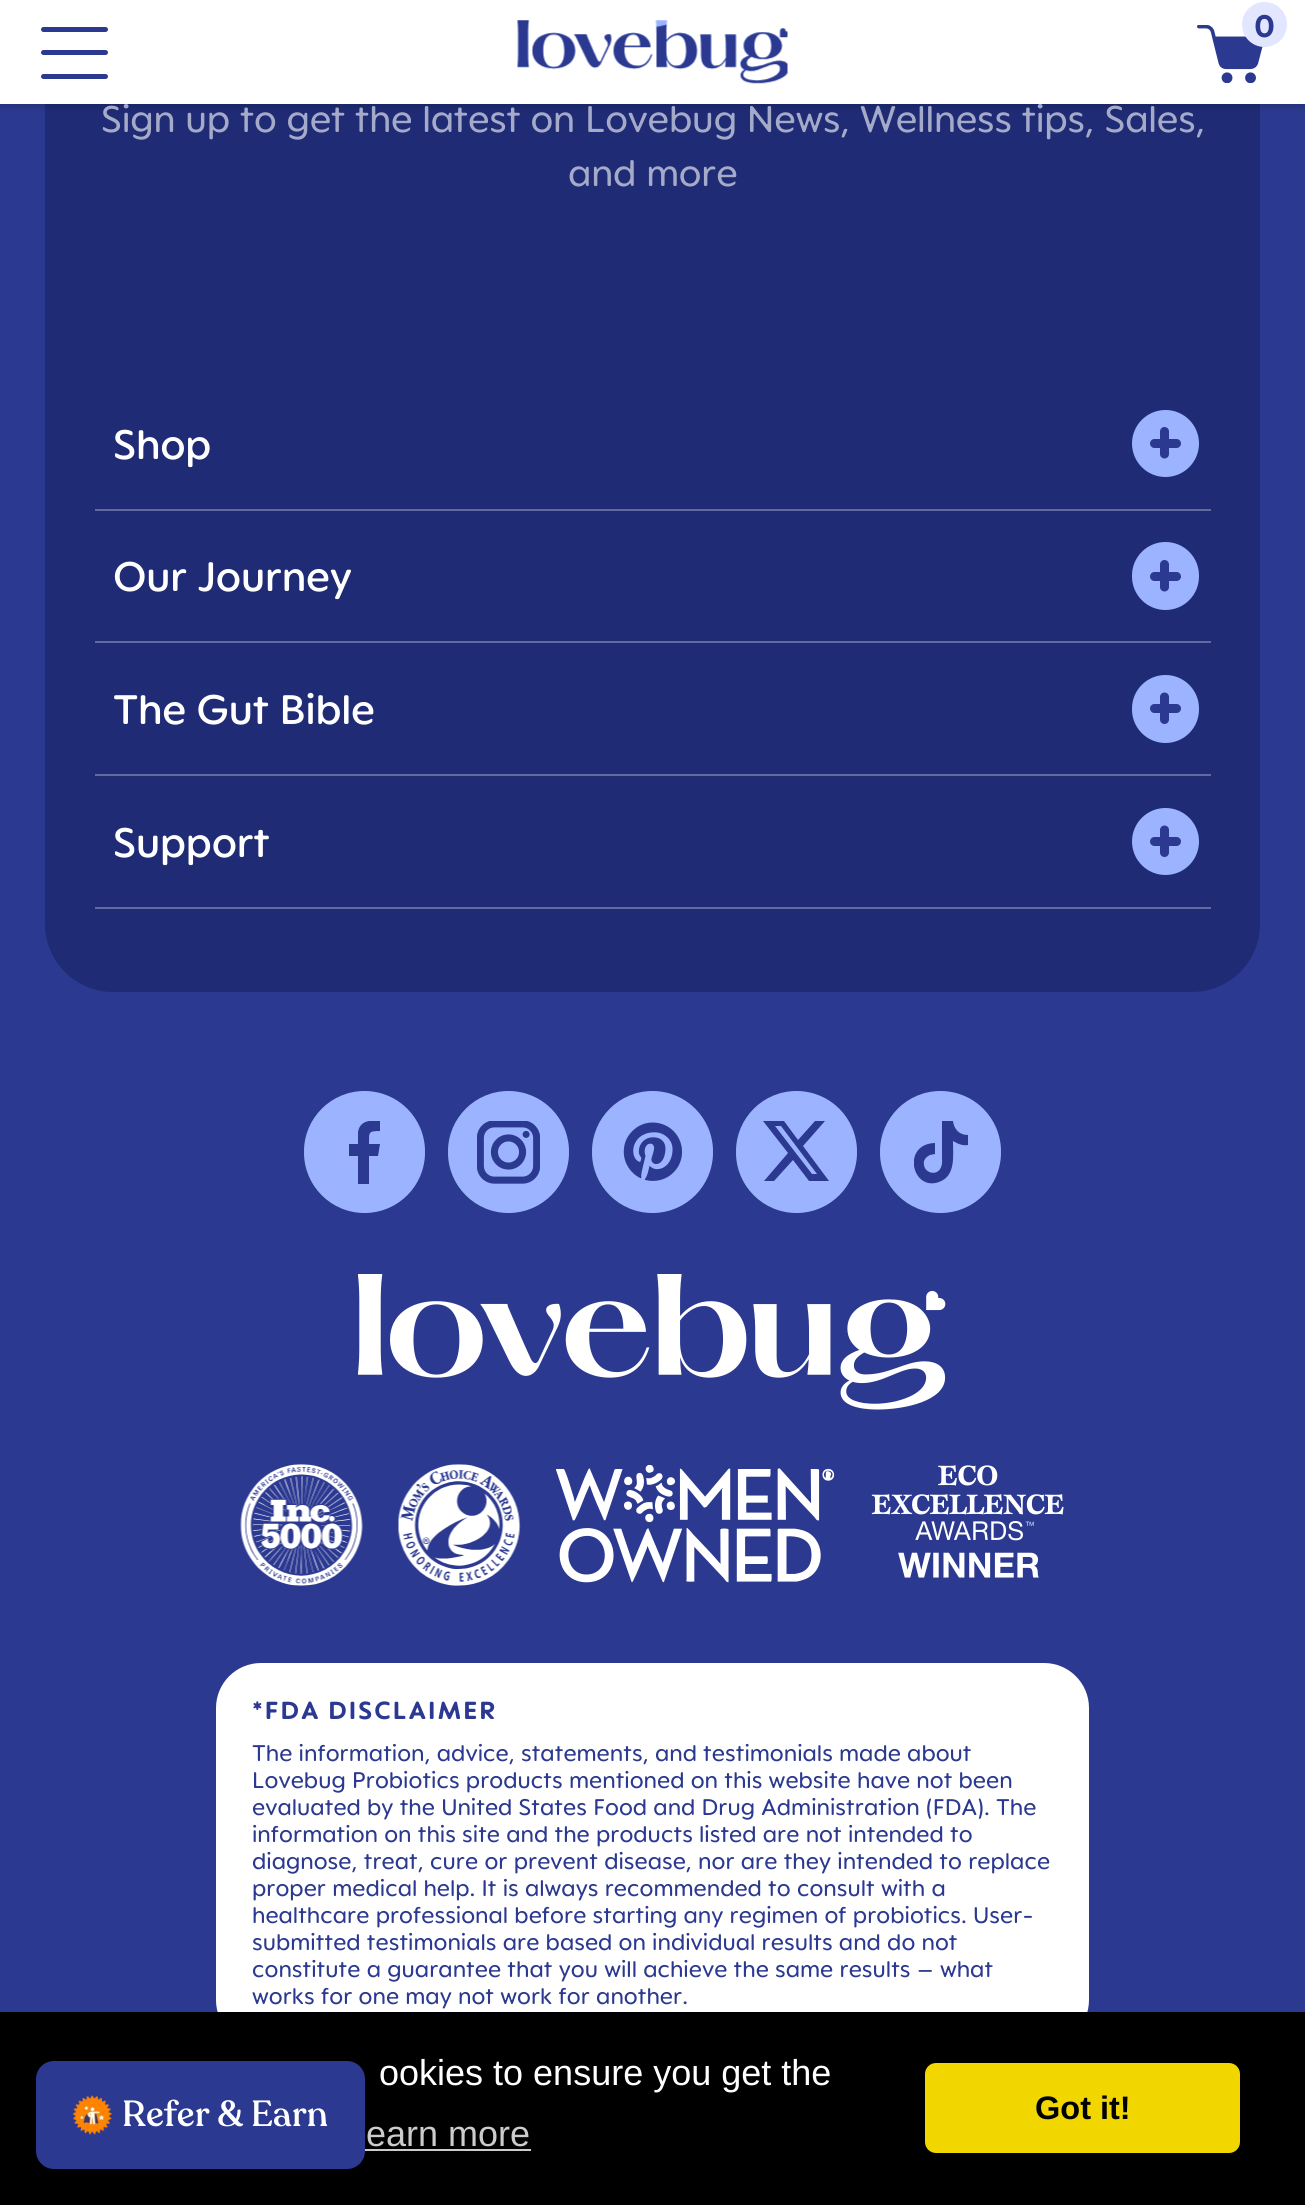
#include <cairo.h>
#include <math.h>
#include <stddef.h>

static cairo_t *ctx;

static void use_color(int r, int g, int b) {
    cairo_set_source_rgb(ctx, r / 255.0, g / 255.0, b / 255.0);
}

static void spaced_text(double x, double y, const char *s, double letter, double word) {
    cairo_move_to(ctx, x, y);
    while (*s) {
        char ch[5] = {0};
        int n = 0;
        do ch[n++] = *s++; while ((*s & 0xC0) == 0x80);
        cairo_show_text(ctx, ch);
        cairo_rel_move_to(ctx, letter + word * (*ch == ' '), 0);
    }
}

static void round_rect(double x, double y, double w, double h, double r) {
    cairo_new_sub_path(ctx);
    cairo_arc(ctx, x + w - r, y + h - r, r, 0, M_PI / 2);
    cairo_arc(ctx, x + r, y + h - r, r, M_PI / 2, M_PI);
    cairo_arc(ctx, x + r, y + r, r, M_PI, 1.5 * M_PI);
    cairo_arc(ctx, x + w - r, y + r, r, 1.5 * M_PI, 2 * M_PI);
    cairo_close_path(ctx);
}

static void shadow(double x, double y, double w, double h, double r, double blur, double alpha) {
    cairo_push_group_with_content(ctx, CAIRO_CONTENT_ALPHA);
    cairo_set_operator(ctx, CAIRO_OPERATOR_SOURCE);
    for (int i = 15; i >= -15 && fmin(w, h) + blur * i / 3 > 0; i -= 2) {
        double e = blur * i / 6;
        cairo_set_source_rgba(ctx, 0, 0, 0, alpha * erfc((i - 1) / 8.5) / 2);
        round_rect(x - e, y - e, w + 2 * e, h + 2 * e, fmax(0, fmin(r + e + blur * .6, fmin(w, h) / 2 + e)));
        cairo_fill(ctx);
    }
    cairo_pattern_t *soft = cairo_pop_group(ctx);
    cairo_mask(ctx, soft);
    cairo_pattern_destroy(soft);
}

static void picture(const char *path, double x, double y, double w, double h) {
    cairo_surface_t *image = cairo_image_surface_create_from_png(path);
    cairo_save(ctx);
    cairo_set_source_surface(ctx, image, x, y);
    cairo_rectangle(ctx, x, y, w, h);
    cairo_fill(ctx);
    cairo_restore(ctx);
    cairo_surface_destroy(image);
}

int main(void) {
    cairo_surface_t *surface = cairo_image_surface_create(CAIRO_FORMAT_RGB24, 1305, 2205);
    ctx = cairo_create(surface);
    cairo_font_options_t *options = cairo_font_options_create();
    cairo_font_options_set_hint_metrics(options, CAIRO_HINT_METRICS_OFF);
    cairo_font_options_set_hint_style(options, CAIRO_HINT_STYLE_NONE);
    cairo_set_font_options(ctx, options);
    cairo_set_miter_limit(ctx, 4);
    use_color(43, 57, 144);
    cairo_paint(ctx);
    use_color(31, 43, 117);
    round_rect(45, -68, 1215, 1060, 68);
    cairo_fill(ctx);
    use_color(0, 0, 0);
    shadow(0, 2, 1305, 104, 0, 4.5, 0.2);
    use_color(255, 255, 255);
    cairo_rectangle(ctx, 0, 0, 1305, 104);
    cairo_fill(ctx);
    use_color(43, 57, 144);
    round_rect(41, 27, 67, 5, 2.5);
    cairo_fill(ctx);
    round_rect(41, 50, 67, 5, 2.5);
    cairo_fill(ctx);
    round_rect(41, 74, 67, 5, 2.5);
    cairo_fill(ctx);
    picture("img1.png", 517, 20, 271, 64);
    picture("img2.png", 1197, 25, 66, 58);
    use_color(226, 230, 255);
    cairo_arc(ctx, 1264.5, 24.5, 22.5, 0, 2 * M_PI);
    cairo_fill(ctx);
    cairo_select_font_face(ctx, "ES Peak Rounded", CAIRO_FONT_SLANT_NORMAL, CAIRO_FONT_WEIGHT_BOLD);
    cairo_set_font_size(ctx, 34);
    use_color(43, 57, 144);
    spaced_text(1254, 37, "0", 1, 0);
    cairo_select_font_face(ctx, "ES Peak Rounded", CAIRO_FONT_SLANT_NORMAL, CAIRO_FONT_WEIGHT_NORMAL);
    cairo_set_font_size(ctx, 40.5);
    use_color(165, 170, 200);
    spaced_text(101, 132, "Sign up to get the latest on Lovebug News, Wellness tips, Sales,", -0.2, 0);
    spaced_text(568, 186, "and more", -0.2, 0);
    use_color(98, 107, 158);
    cairo_rectangle(ctx, 95, 509, 1116, 2);
    cairo_fill(ctx);
    cairo_select_font_face(ctx, "ES Peak Rounded Medium", CAIRO_FONT_SLANT_NORMAL, CAIRO_FONT_WEIGHT_NORMAL);
    cairo_set_font_size(ctx, 45);
    use_color(255, 255, 255);
    spaced_text(113, 459, "Shop", -0.25, 0);
    use_color(156, 180, 255);
    cairo_new_path(ctx);
    cairo_arc(ctx, 1165.5, 443.5, 33.5, 0, 2 * M_PI);
    cairo_fill(ctx);
    use_color(43, 57, 144);
    round_rect(1150, 439, 31, 9, 4.5);
    cairo_fill(ctx);
    cairo_new_path(ctx);
    cairo_move_to(ctx, 1169, 431.5);
    cairo_line_to(ctx, 1169, 454);
    cairo_curve_to(ctx, 1169, 456.5, 1167, 458.5, 1164.5, 458.5);
    cairo_curve_to(ctx, 1162, 458.5, 1160, 456.5, 1160, 454);
    cairo_line_to(ctx, 1160, 431.5);
    cairo_curve_to(ctx, 1160, 429, 1162, 427, 1164.5, 427);
    cairo_curve_to(ctx, 1167, 427, 1169, 429, 1169, 431.5);
    cairo_close_path(ctx);
    cairo_fill(ctx);
    use_color(98, 107, 158);
    cairo_rectangle(ctx, 95, 641, 1116, 2);
    cairo_fill(ctx);
    use_color(255, 255, 255);
    spaced_text(113, 591, "Our Journey", -0.25, 0);
    use_color(156, 180, 255);
    round_rect(1132, 542, 67, 68, 33.5);
    cairo_fill(ctx);
    use_color(43, 57, 144);
    round_rect(1150, 572, 31, 9, 4.5);
    cairo_fill(ctx);
    cairo_new_path(ctx);
    cairo_move_to(ctx, 1169, 564.5);
    cairo_line_to(ctx, 1169, 587);
    cairo_curve_to(ctx, 1169, 589.5, 1167, 591.5, 1164.5, 591.5);
    cairo_curve_to(ctx, 1162, 591.5, 1160, 589.5, 1160, 587);
    cairo_line_to(ctx, 1160, 564.5);
    cairo_curve_to(ctx, 1160, 562, 1162, 560, 1164.5, 560);
    cairo_curve_to(ctx, 1167, 560, 1169, 562, 1169, 564.5);
    cairo_close_path(ctx);
    cairo_fill(ctx);
    use_color(98, 107, 158);
    cairo_rectangle(ctx, 95, 774, 1116, 2);
    cairo_fill(ctx);
    use_color(255, 255, 255);
    spaced_text(113, 724, "The Gut Bible", -0.25, 0);
    use_color(156, 180, 255);
    round_rect(1132, 675, 67, 68, 33.5);
    cairo_fill(ctx);
    use_color(43, 57, 144);
    round_rect(1150, 704, 31, 9, 4.5);
    cairo_fill(ctx);
    cairo_new_path(ctx);
    cairo_move_to(ctx, 1169, 697);
    cairo_line_to(ctx, 1169, 719.5);
    cairo_curve_to(ctx, 1169, 722, 1167, 724, 1164.5, 724);
    cairo_curve_to(ctx, 1162, 724, 1160, 722, 1160, 719.5);
    cairo_line_to(ctx, 1160, 697);
    cairo_curve_to(ctx, 1160, 694.5, 1162, 692.5, 1164.5, 692.5);
    cairo_curve_to(ctx, 1167, 692.5, 1169, 694.5, 1169, 697);
    cairo_close_path(ctx);
    cairo_fill(ctx);
    use_color(98, 107, 158);
    cairo_rectangle(ctx, 95, 907, 1116, 2);
    cairo_fill(ctx);
    use_color(255, 255, 255);
    spaced_text(113, 857, "Support", -0.25, 0);
    use_color(156, 180, 255);
    cairo_new_path(ctx);
    cairo_arc(ctx, 1165.5, 841.5, 33.5, 0, 2 * M_PI);
    cairo_fill(ctx);
    use_color(43, 57, 144);
    round_rect(1150, 837, 31, 9, 4.5);
    cairo_fill(ctx);
    cairo_new_path(ctx);
    cairo_move_to(ctx, 1169, 830);
    cairo_line_to(ctx, 1169, 852.5);
    cairo_curve_to(ctx, 1169, 855, 1167, 857, 1164.5, 857);
    cairo_curve_to(ctx, 1162, 857, 1160, 855, 1160, 852.5);
    cairo_line_to(ctx, 1160, 830);
    cairo_curve_to(ctx, 1160, 827.5, 1162, 825.5, 1164.5, 825.5);
    cairo_curve_to(ctx, 1167, 825.5, 1169, 827.5, 1169, 830);
    cairo_close_path(ctx);
    cairo_fill(ctx);
    use_color(156, 180, 255);
    round_rect(304, 1091, 121, 122, 60.5);
    cairo_fill(ctx);
    cairo_save(ctx);
    cairo_rectangle(ctx, 349, 1121, 31, 63);
    cairo_clip(ctx);
    use_color(43, 57, 144);
    cairo_set_fill_rule(ctx, CAIRO_FILL_RULE_EVEN_ODD);
    cairo_new_path(ctx);
    cairo_move_to(ctx, 358, 1184);
    cairo_line_to(ctx, 358, 1156);
    cairo_line_to(ctx, 349, 1156);
    cairo_line_to(ctx, 349, 1144);
    cairo_line_to(ctx, 358, 1144);
    cairo_line_to(ctx, 358, 1132);
    cairo_curve_to(ctx, 360, 1120, 371, 1120, 381, 1121);
    cairo_line_to(ctx, 381, 1131);
    cairo_curve_to(ctx, 368, 1131, 369, 1132, 369, 1144);
    cairo_line_to(ctx, 380, 1144);
    cairo_line_to(ctx, 378, 1156);
    cairo_line_to(ctx, 369, 1156);
    cairo_line_to(ctx, 369, 1184);
    cairo_fill(ctx);
    cairo_restore(ctx);
    round_rect(448, 1091, 121, 122, 60.5);
    cairo_fill(ctx);
    picture("img3.png", 477, 1121, 63, 63);
    round_rect(592, 1091, 121, 122, 60.5);
    cairo_fill(ctx);
    picture("img4.png", 623, 1122, 59, 59);
    round_rect(736, 1091, 121, 122, 60.5);
    cairo_fill(ctx);
    use_color(43, 57, 144);
    cairo_set_fill_rule(ctx, CAIRO_FILL_RULE_EVEN_ODD);
    cairo_new_path(ctx);
    cairo_move_to(ctx, 815, 1121);
    cairo_line_to(ctx, 825, 1121);
    cairo_line_to(ctx, 803, 1146);
    cairo_line_to(ctx, 829, 1181);
    cairo_line_to(ctx, 809, 1181);
    cairo_line_to(ctx, 793, 1160);
    cairo_line_to(ctx, 774, 1181);
    cairo_line_to(ctx, 764, 1181);
    cairo_line_to(ctx, 788, 1153);
    cairo_line_to(ctx, 763, 1121);
    cairo_line_to(ctx, 784, 1121);
    cairo_line_to(ctx, 798, 1140);
    cairo_close_path(ctx);
    cairo_move_to(ctx, 812, 1174);
    cairo_line_to(ctx, 817, 1174);
    cairo_line_to(ctx, 781, 1126);
    cairo_line_to(ctx, 775, 1126);
    cairo_close_path(ctx);
    cairo_fill(ctx);
    use_color(156, 180, 255);
    round_rect(880, 1091, 121, 122, 60.5);
    cairo_fill(ctx);
    cairo_save(ctx);
    cairo_set_fill_rule(ctx, CAIRO_FILL_RULE_WINDING);
    cairo_rectangle(ctx, 914, 1121, 54, 63);
    cairo_clip(ctx);
    use_color(43, 57, 144);
    cairo_set_fill_rule(ctx, CAIRO_FILL_RULE_EVEN_ODD);
    cairo_new_path(ctx);
    cairo_move_to(ctx, 953, 1121);
    cairo_curve_to(ctx, 954, 1129, 959, 1135, 968, 1135);
    cairo_line_to(ctx, 968, 1145);
    cairo_curve_to(ctx, 963, 1146, 958, 1144, 953, 1141);
    cairo_curve_to(ctx, 953, 1156, 956, 1176, 939, 1182);
    cairo_curve_to(ctx, 912, 1192, 901, 1144, 935, 1143);
    cairo_line_to(ctx, 935, 1154);
    cairo_line_to(ctx, 930, 1155);
    cairo_curve_to(ctx, 926, 1157, 923, 1160, 924, 1165);
    cairo_curve_to(ctx, 925, 1175, 944, 1178, 942, 1158);
    cairo_line_to(ctx, 942, 1121);
    cairo_close_path(ctx);
    cairo_fill(ctx);
    cairo_restore(ctx);
    picture("img5.png", 358, 1274, 588, 136);
    picture("img6.png", 240, 1464, 123, 122);
    picture("img7.png", 398, 1464, 123, 122);
    picture("img8.png", 556, 1465, 279, 118);
    picture("img9.png", 871, 1465, 193, 113);
    use_color(255, 255, 255);
    round_rect(216, 1663, 873, 382, 45);
    cairo_fill(ctx);
    cairo_select_font_face(ctx, "ES Peak Rounded", CAIRO_FONT_SLANT_NORMAL, CAIRO_FONT_WEIGHT_BOLD);
    cairo_set_font_size(ctx, 27);
    use_color(43, 57, 144);
    spaced_text(252, 1719, "*FDA DISCLAIMER", 2, 0);
    cairo_select_font_face(ctx, "ES Peak Rounded", CAIRO_FONT_SLANT_NORMAL, CAIRO_FONT_WEIGHT_NORMAL);
    cairo_set_font_size(ctx, 24.75);
    cairo_move_to(ctx, 252, 1761);
    cairo_show_text(ctx, "The information, advice, statements, and testimonials made about");
    cairo_move_to(ctx, 252, 1788);
    cairo_show_text(ctx, "Lovebug Probiotics products mentioned on this website have not been");
    cairo_move_to(ctx, 252, 1815);
    cairo_show_text(ctx, "evaluated by the United States Food and Drug Administration (FDA). The");
    cairo_move_to(ctx, 252, 1842);
    cairo_show_text(ctx, "information on this site and the products listed are not intended to");
    cairo_move_to(ctx, 252, 1869);
    cairo_show_text(ctx, "diagnose, treat, cure or prevent disease, nor are they intended to replace");
    cairo_move_to(ctx, 252, 1896);
    cairo_show_text(ctx, "proper medical help. It is always recommended to consult with a");
    cairo_move_to(ctx, 252, 1923);
    cairo_show_text(ctx, "healthcare professional before starting any regimen of probiotics. User-");
    cairo_move_to(ctx, 252, 1950);
    cairo_show_text(ctx, "submitted testimonials are based on individual results and do not");
    cairo_move_to(ctx, 252, 1977);
    cairo_show_text(ctx, "constitute a guarantee that you will achieve the same results – what");
    cairo_move_to(ctx, 252, 2004);
    cairo_show_text(ctx, "works for one may not work for another.");
    use_color(0, 0, 0);
    cairo_rectangle(ctx, 0, 2012, 1305, 193);
    cairo_fill(ctx);
    use_color(43, 57, 144);
    round_rect(36, 2061, 329, 108, 18);
    cairo_fill(ctx);
    picture("img10.png", 72, 2095, 40, 40);
    cairo_select_font_face(ctx, "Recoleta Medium", CAIRO_FONT_SLANT_NORMAL, CAIRO_FONT_WEIGHT_NORMAL);
    cairo_set_font_size(ctx, 36);
    use_color(255, 255, 255);
    cairo_move_to(ctx, 122, 2126);
    cairo_show_text(ctx, "Refer & Earn");
    cairo_select_font_face(ctx, "Liberation Sans", CAIRO_FONT_SLANT_NORMAL, CAIRO_FONT_WEIGHT_NORMAL);
    cairo_move_to(ctx, 379, 2085);
    cairo_show_text(ctx, "ookies to ensure you get the");
    use_color(204, 204, 204);
    cairo_move_to(ctx, 366, 2146);
    cairo_show_text(ctx, "earn more");
    cairo_rectangle(ctx, 365, 2149, 166, 2);
    cairo_fill(ctx);
    use_color(241, 214, 0);
    round_rect(925, 2063, 315, 90, 11);
    cairo_fill(ctx);
    cairo_select_font_face(ctx, "Liberation Sans", CAIRO_FONT_SLANT_NORMAL, CAIRO_FONT_WEIGHT_BOLD);
    cairo_set_font_size(ctx, 32.5);
    use_color(0, 0, 0);
    cairo_move_to(ctx, 1035, 2119);
    cairo_show_text(ctx, "Got it!");
    cairo_surface_write_to_png(surface, "result.png");
    cairo_font_options_destroy(options);
    cairo_destroy(ctx);
    cairo_surface_destroy(surface);
    return 0;
}
